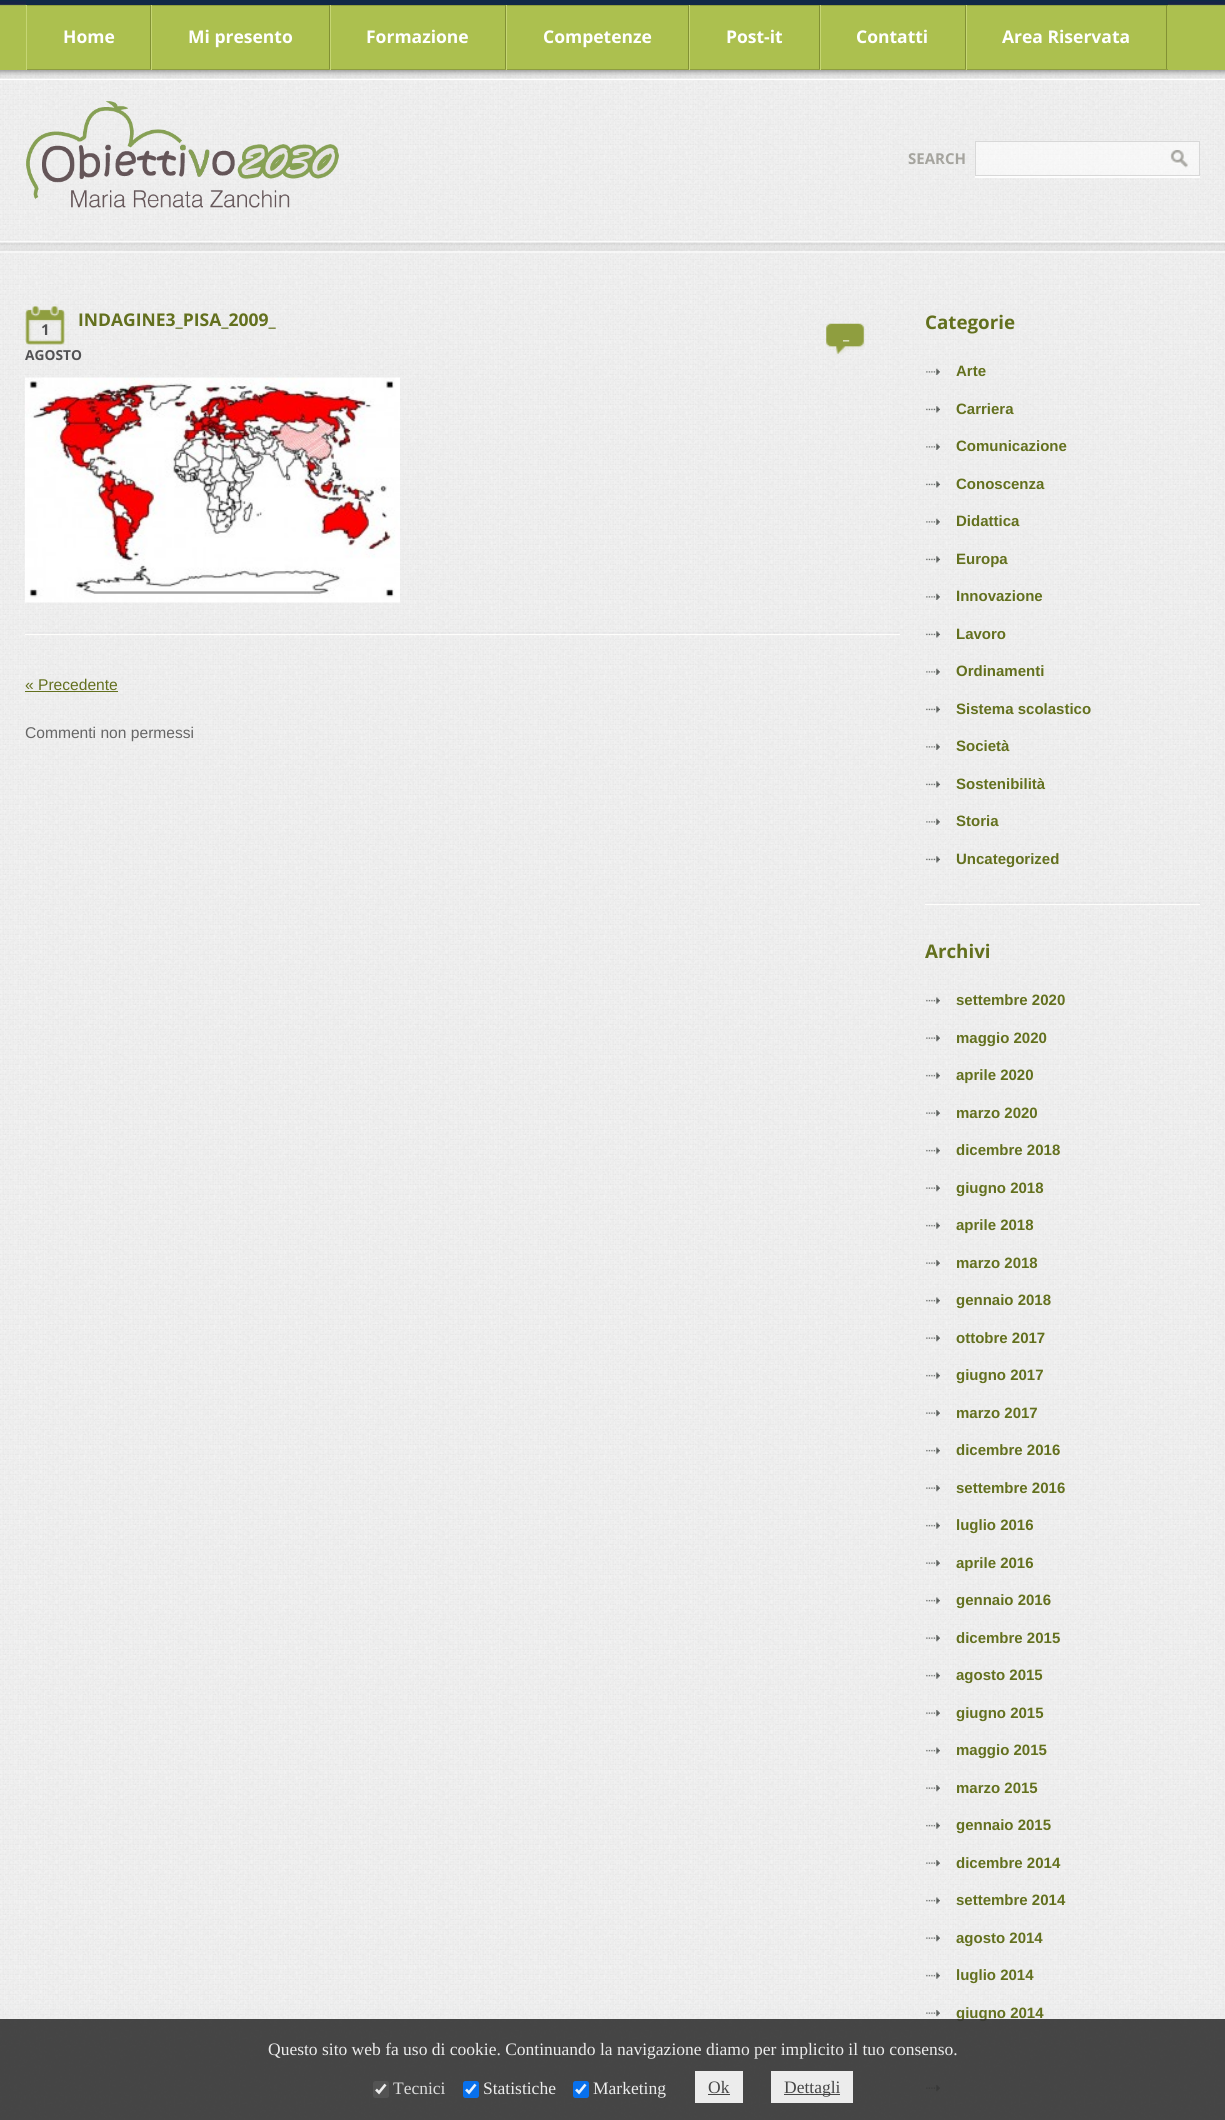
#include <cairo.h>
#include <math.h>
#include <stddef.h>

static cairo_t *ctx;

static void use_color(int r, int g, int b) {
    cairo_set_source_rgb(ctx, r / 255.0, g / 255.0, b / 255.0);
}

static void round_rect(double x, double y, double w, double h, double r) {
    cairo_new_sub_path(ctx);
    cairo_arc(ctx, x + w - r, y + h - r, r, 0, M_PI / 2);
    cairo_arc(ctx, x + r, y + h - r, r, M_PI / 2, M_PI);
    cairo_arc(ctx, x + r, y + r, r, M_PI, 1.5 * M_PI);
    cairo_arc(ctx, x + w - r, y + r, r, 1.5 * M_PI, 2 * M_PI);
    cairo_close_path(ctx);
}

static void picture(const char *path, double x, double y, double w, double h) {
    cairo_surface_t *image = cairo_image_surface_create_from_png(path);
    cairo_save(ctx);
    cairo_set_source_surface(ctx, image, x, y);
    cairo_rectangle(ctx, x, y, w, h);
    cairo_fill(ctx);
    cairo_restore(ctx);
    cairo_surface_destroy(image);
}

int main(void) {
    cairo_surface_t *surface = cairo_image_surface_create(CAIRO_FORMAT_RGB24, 1225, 2120);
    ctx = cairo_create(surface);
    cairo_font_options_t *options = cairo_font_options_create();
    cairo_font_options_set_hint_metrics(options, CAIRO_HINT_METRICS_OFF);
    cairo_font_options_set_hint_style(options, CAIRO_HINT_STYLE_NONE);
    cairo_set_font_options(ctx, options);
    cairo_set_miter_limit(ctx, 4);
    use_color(255, 255, 255);
    cairo_paint(ctx);
    picture("img1.png", 0, 80, 1225, 2040);
    use_color(172, 192, 79);
    cairo_rectangle(ctx, 0, 6, 1225, 64);
    cairo_fill(ctx);
    picture("img2.png", 0, 0, 1225, 6);
    cairo_rectangle(ctx, 25, 5, 1, 1);
    cairo_fill(ctx);
    picture("img3.png", 1168, 5, 1, 1);
    use_color(16, 40, 71);
    cairo_rectangle(ctx, 26, 1, 1142, 4);
    cairo_fill(ctx);
    use_color(142, 159, 63);
    cairo_rectangle(ctx, 26, 5, 1142, 1);
    cairo_fill(ctx);
    use_color(130, 145, 52);
    cairo_rectangle(ctx, 150, 5, 1, 65);
    cairo_fill(ctx);
    use_color(142, 157, 64);
    cairo_rectangle(ctx, 26, 69, 125, 1);
    cairo_fill(ctx);
    use_color(198, 214, 116);
    cairo_rectangle(ctx, 26, 5, 1, 65);
    cairo_fill(ctx);
    cairo_select_font_face(ctx, "Open Sans", CAIRO_FONT_SLANT_NORMAL, CAIRO_FONT_WEIGHT_BOLD);
    cairo_set_font_size(ctx, 17.5);
    use_color(255, 255, 255);
    cairo_move_to(ctx, 63, 43);
    cairo_show_text(ctx, "Home");
    use_color(130, 145, 52);
    cairo_rectangle(ctx, 329, 5, 1, 65);
    cairo_fill(ctx);
    use_color(142, 157, 64);
    cairo_rectangle(ctx, 151, 69, 179, 1);
    cairo_fill(ctx);
    use_color(198, 214, 116);
    cairo_rectangle(ctx, 151, 5, 1, 65);
    cairo_fill(ctx);
    use_color(255, 255, 255);
    cairo_move_to(ctx, 188, 43);
    cairo_show_text(ctx, "Mi presento");
    use_color(130, 145, 52);
    cairo_rectangle(ctx, 505, 5, 1, 65);
    cairo_fill(ctx);
    use_color(142, 157, 64);
    cairo_rectangle(ctx, 330, 69, 176, 1);
    cairo_fill(ctx);
    use_color(198, 214, 116);
    cairo_rectangle(ctx, 330, 5, 1, 65);
    cairo_fill(ctx);
    use_color(255, 255, 255);
    cairo_move_to(ctx, 366, 43);
    cairo_show_text(ctx, "Formazione");
    use_color(130, 145, 52);
    cairo_rectangle(ctx, 688, 5, 1, 65);
    cairo_fill(ctx);
    use_color(142, 157, 64);
    cairo_rectangle(ctx, 506, 69, 183, 1);
    cairo_fill(ctx);
    use_color(198, 214, 116);
    cairo_rectangle(ctx, 506, 5, 1, 65);
    cairo_fill(ctx);
    use_color(255, 255, 255);
    cairo_move_to(ctx, 543, 43);
    cairo_show_text(ctx, "Competenze");
    use_color(130, 145, 52);
    cairo_rectangle(ctx, 819, 5, 1, 65);
    cairo_fill(ctx);
    use_color(142, 157, 64);
    cairo_rectangle(ctx, 689, 69, 131, 1);
    cairo_fill(ctx);
    use_color(198, 214, 116);
    cairo_rectangle(ctx, 689, 5, 1, 65);
    cairo_fill(ctx);
    use_color(255, 255, 255);
    cairo_move_to(ctx, 726, 43);
    cairo_show_text(ctx, "Post-it");
    use_color(130, 145, 52);
    cairo_rectangle(ctx, 965, 5, 1, 65);
    cairo_fill(ctx);
    use_color(142, 157, 64);
    cairo_rectangle(ctx, 820, 69, 146, 1);
    cairo_fill(ctx);
    use_color(198, 214, 116);
    cairo_rectangle(ctx, 820, 5, 1, 65);
    cairo_fill(ctx);
    use_color(255, 255, 255);
    cairo_move_to(ctx, 856, 43);
    cairo_show_text(ctx, "Contatti");
    use_color(130, 145, 52);
    cairo_rectangle(ctx, 1166, 5, 1, 65);
    cairo_fill(ctx);
    use_color(142, 157, 64);
    cairo_rectangle(ctx, 966, 69, 202, 1);
    cairo_fill(ctx);
    use_color(198, 214, 116);
    cairo_rectangle(ctx, 966, 5, 1, 65);
    cairo_fill(ctx);
    use_color(255, 255, 255);
    cairo_move_to(ctx, 1002, 43);
    cairo_show_text(ctx, "Area Riservata");
    picture("img4.png", 0, 70, 1225, 10);
    picture("img5.png", 26, 101, 313, 107);
    cairo_set_font_size(ctx, 15);
    use_color(165, 164, 158);
    cairo_move_to(ctx, 908, 164);
    cairo_show_text(ctx, "SEARCH");
    cairo_set_source_rgba(ctx, 1, 1, 1, 0.9);
    cairo_rectangle(ctx, 975, 176, 225, 2);
    cairo_fill(ctx);
    cairo_set_source_rgba(ctx, 1, 1, 1, 0.5);
    cairo_rectangle(ctx, 975.5, 141.5, 224, 34);
    cairo_fill_preserve(ctx);
    use_color(216, 216, 216);
    cairo_set_line_width(ctx, 1);
    cairo_stroke(ctx);
    picture("img6.png", 1170, 150, 18, 18);
    picture("img7.png", 0, 241, 1225, 12);
    picture("img8.png", 25, 632, 875, 3);
    cairo_set_font_size(ctx, 17.5);
    use_color(99, 112, 30);
    cairo_move_to(ctx, 78, 326);
    cairo_show_text(ctx, "INDAGINE3_PISA_2009_");
    picture("img9.png", 25, 306, 40, 39);
    cairo_set_font_size(ctx, 15);
    use_color(82, 82, 84);
    cairo_move_to(ctx, 41, 335);
    cairo_show_text(ctx, "1");
    cairo_set_font_size(ctx, 13.75);
    cairo_move_to(ctx, 25, 360);
    cairo_show_text(ctx, "AGOSTO");
    picture("img10.png", 826, 323, 39, 32);
    cairo_set_font_size(ctx, 15);
    use_color(255, 255, 255);
    cairo_move_to(ctx, 843, 339);
    cairo_show_text(ctx, "_");
    picture("img11.png", 25, 377, 375, 226);
    cairo_select_font_face(ctx, "Liberation Sans", CAIRO_FONT_SLANT_NORMAL, CAIRO_FONT_WEIGHT_NORMAL);
    cairo_set_font_size(ctx, 15.6);
    use_color(99, 112, 30);
    cairo_move_to(ctx, 25, 690);
    cairo_show_text(ctx, "« Precedente");
    cairo_rectangle(ctx, 25, 691, 93, 1);
    cairo_fill(ctx);
    use_color(102, 102, 102);
    cairo_move_to(ctx, 25, 738);
    cairo_show_text(ctx, "Commenti non permessi");
    cairo_select_font_face(ctx, "Open Sans", CAIRO_FONT_SLANT_NORMAL, CAIRO_FONT_WEIGHT_BOLD);
    cairo_set_font_size(ctx, 18.75);
    use_color(99, 112, 30);
    cairo_move_to(ctx, 925, 329);
    cairo_show_text(ctx, "Categorie");
    picture("img12.png", 926, 368, 14, 7);
    cairo_select_font_face(ctx, "Liberation Sans", CAIRO_FONT_SLANT_NORMAL, CAIRO_FONT_WEIGHT_BOLD);
    cairo_set_font_size(ctx, 15);
    cairo_move_to(ctx, 956, 376);
    cairo_show_text(ctx, "Arte");
    picture("img13.png", 926, 406, 14, 7);
    cairo_move_to(ctx, 956, 414);
    cairo_show_text(ctx, "Carriera");
    picture("img14.png", 926, 443, 14, 7);
    cairo_move_to(ctx, 956, 451);
    cairo_show_text(ctx, "Comunicazione");
    picture("img15.png", 926, 481, 14, 7);
    cairo_move_to(ctx, 956, 489);
    cairo_show_text(ctx, "Conoscenza");
    picture("img16.png", 926, 518, 14, 7);
    cairo_move_to(ctx, 956, 526);
    cairo_show_text(ctx, "Didattica");
    picture("img17.png", 926, 556, 14, 7);
    cairo_move_to(ctx, 956, 564);
    cairo_show_text(ctx, "Europa");
    picture("img18.png", 926, 593, 14, 7);
    cairo_move_to(ctx, 956, 601);
    cairo_show_text(ctx, "Innovazione");
    picture("img19.png", 926, 631, 14, 7);
    cairo_move_to(ctx, 956, 639);
    cairo_show_text(ctx, "Lavoro");
    picture("img20.png", 926, 668, 14, 7);
    cairo_move_to(ctx, 956, 676);
    cairo_show_text(ctx, "Ordinamenti");
    picture("img21.png", 926, 706, 14, 7);
    cairo_move_to(ctx, 956, 714);
    cairo_show_text(ctx, "Sistema scolastico");
    picture("img22.png", 926, 743, 14, 7);
    cairo_move_to(ctx, 956, 751);
    cairo_show_text(ctx, "Società");
    picture("img23.png", 926, 781, 14, 7);
    cairo_move_to(ctx, 956, 789);
    cairo_show_text(ctx, "Sostenibilità");
    picture("img24.png", 926, 818, 14, 7);
    cairo_move_to(ctx, 956, 826);
    cairo_show_text(ctx, "Storia");
    picture("img25.png", 926, 856, 14, 7);
    cairo_move_to(ctx, 956, 864);
    cairo_show_text(ctx, "Uncategorized");
    picture("img26.png", 925, 902, 275, 3);
    cairo_select_font_face(ctx, "Open Sans", CAIRO_FONT_SLANT_NORMAL, CAIRO_FONT_WEIGHT_BOLD);
    cairo_set_font_size(ctx, 18.75);
    cairo_move_to(ctx, 925, 958);
    cairo_show_text(ctx, "Archivi");
    picture("img27.png", 926, 997, 14, 7);
    cairo_select_font_face(ctx, "Liberation Sans", CAIRO_FONT_SLANT_NORMAL, CAIRO_FONT_WEIGHT_BOLD);
    cairo_set_font_size(ctx, 15);
    cairo_move_to(ctx, 956, 1005);
    cairo_show_text(ctx, "settembre 2020");
    picture("img28.png", 926, 1035, 14, 7);
    cairo_move_to(ctx, 956, 1043);
    cairo_show_text(ctx, "maggio 2020");
    picture("img29.png", 926, 1072, 14, 7);
    cairo_move_to(ctx, 956, 1080);
    cairo_show_text(ctx, "aprile 2020");
    picture("img30.png", 926, 1110, 14, 7);
    cairo_move_to(ctx, 956, 1118);
    cairo_show_text(ctx, "marzo 2020");
    picture("img31.png", 926, 1147, 14, 7);
    cairo_move_to(ctx, 956, 1155);
    cairo_show_text(ctx, "dicembre 2018");
    picture("img32.png", 926, 1185, 14, 7);
    cairo_move_to(ctx, 956, 1193);
    cairo_show_text(ctx, "giugno 2018");
    picture("img33.png", 926, 1222, 14, 7);
    cairo_move_to(ctx, 956, 1230);
    cairo_show_text(ctx, "aprile 2018");
    picture("img34.png", 926, 1260, 14, 7);
    cairo_move_to(ctx, 956, 1268);
    cairo_show_text(ctx, "marzo 2018");
    picture("img35.png", 926, 1297, 14, 7);
    cairo_move_to(ctx, 956, 1305);
    cairo_show_text(ctx, "gennaio 2018");
    picture("img36.png", 926, 1335, 14, 7);
    cairo_move_to(ctx, 956, 1343);
    cairo_show_text(ctx, "ottobre 2017");
    picture("img37.png", 926, 1372, 14, 7);
    cairo_move_to(ctx, 956, 1380);
    cairo_show_text(ctx, "giugno 2017");
    picture("img38.png", 926, 1410, 14, 7);
    cairo_move_to(ctx, 956, 1418);
    cairo_show_text(ctx, "marzo 2017");
    picture("img39.png", 926, 1447, 14, 7);
    cairo_move_to(ctx, 956, 1455);
    cairo_show_text(ctx, "dicembre 2016");
    picture("img40.png", 926, 1485, 14, 7);
    cairo_move_to(ctx, 956, 1493);
    cairo_show_text(ctx, "settembre 2016");
    picture("img41.png", 926, 1522, 14, 7);
    cairo_move_to(ctx, 956, 1530);
    cairo_show_text(ctx, "luglio 2016");
    picture("img42.png", 926, 1560, 14, 7);
    cairo_move_to(ctx, 956, 1568);
    cairo_show_text(ctx, "aprile 2016");
    picture("img43.png", 926, 1597, 14, 7);
    cairo_move_to(ctx, 956, 1605);
    cairo_show_text(ctx, "gennaio 2016");
    picture("img44.png", 926, 1635, 14, 7);
    cairo_move_to(ctx, 956, 1643);
    cairo_show_text(ctx, "dicembre 2015");
    picture("img45.png", 926, 1672, 14, 7);
    cairo_move_to(ctx, 956, 1680);
    cairo_show_text(ctx, "agosto 2015");
    picture("img46.png", 926, 1710, 14, 7);
    cairo_move_to(ctx, 956, 1718);
    cairo_show_text(ctx, "giugno 2015");
    picture("img47.png", 926, 1747, 14, 7);
    cairo_move_to(ctx, 956, 1755);
    cairo_show_text(ctx, "maggio 2015");
    picture("img48.png", 926, 1785, 14, 7);
    cairo_move_to(ctx, 956, 1793);
    cairo_show_text(ctx, "marzo 2015");
    picture("img49.png", 926, 1822, 14, 7);
    cairo_move_to(ctx, 956, 1830);
    cairo_show_text(ctx, "gennaio 2015");
    picture("img50.png", 926, 1860, 14, 7);
    cairo_move_to(ctx, 956, 1868);
    cairo_show_text(ctx, "dicembre 2014");
    picture("img51.png", 926, 1897, 14, 7);
    cairo_move_to(ctx, 956, 1905);
    cairo_show_text(ctx, "settembre 2014");
    picture("img52.png", 926, 1935, 14, 7);
    cairo_move_to(ctx, 956, 1943);
    cairo_show_text(ctx, "agosto 2014");
    picture("img27.png", 926, 1972, 14, 7);
    cairo_move_to(ctx, 956, 1980);
    cairo_show_text(ctx, "luglio 2014");
    picture("img28.png", 926, 2010, 14, 7);
    cairo_move_to(ctx, 956, 2018);
    cairo_show_text(ctx, "giugno 2014");
    picture("img53.png", 926, 2047, 14, 7);
    picture("img54.png", 926, 2085, 14, 7);
    cairo_set_source_rgba(ctx, 0.2, 0.2, 0.2, 0.9);
    cairo_rectangle(ctx, 0, 2019, 1225, 101);
    cairo_fill(ctx);
    cairo_select_font_face(ctx, "Liberation Serif", CAIRO_FONT_SLANT_NORMAL, CAIRO_FONT_WEIGHT_NORMAL);
    cairo_set_font_size(ctx, 17.5);
    use_color(236, 236, 236);
    cairo_move_to(ctx, 268, 2055);
    cairo_show_text(ctx, "Questo sito web fa uso di cookie. Continuando la navigazione diamo per implicito il tuo consenso.");
    use_color(83, 83, 83);
    round_rect(373, 2081, 16, 17, 2.5);
    cairo_fill(ctx);
    cairo_new_path(ctx);
    cairo_move_to(ctx, 376, 2089.5);
    cairo_line_to(ctx, 379, 2092.5);
    cairo_line_to(ctx, 385.5, 2084.5);
    use_color(238, 238, 238);
    cairo_set_line_width(ctx, 2.6);
    cairo_stroke(ctx);
    use_color(220, 220, 220);
    cairo_move_to(ctx, 393, 2094);
    cairo_show_text(ctx, "Tecnici");
    use_color(7, 112, 236);
    round_rect(463, 2081, 16, 17, 2.5);
    cairo_fill(ctx);
    cairo_new_path(ctx);
    cairo_move_to(ctx, 466, 2089.5);
    cairo_line_to(ctx, 469, 2092.5);
    cairo_line_to(ctx, 475.5, 2084.5);
    use_color(230, 241, 253);
    cairo_stroke(ctx);
    use_color(236, 236, 236);
    cairo_move_to(ctx, 483, 2094);
    cairo_show_text(ctx, "Statistiche");
    use_color(7, 112, 236);
    round_rect(573, 2081, 16, 17, 2.5);
    cairo_fill(ctx);
    cairo_new_path(ctx);
    cairo_move_to(ctx, 576, 2089.5);
    cairo_line_to(ctx, 579, 2092.5);
    cairo_line_to(ctx, 585.5, 2084.5);
    use_color(230, 241, 253);
    cairo_stroke(ctx);
    use_color(236, 236, 236);
    cairo_move_to(ctx, 593, 2094);
    cairo_show_text(ctx, "Marketing");
    cairo_rectangle(ctx, 695, 2071, 48, 32);
    cairo_fill(ctx);
    use_color(70, 70, 70);
    cairo_move_to(ctx, 708, 2093);
    cairo_show_text(ctx, "Ok");
    cairo_rectangle(ctx, 708, 2094, 22, 1);
    cairo_fill(ctx);
    use_color(236, 236, 236);
    cairo_rectangle(ctx, 771, 2071, 82, 32);
    cairo_fill(ctx);
    use_color(70, 70, 70);
    cairo_rectangle(ctx, 784, 2094, 56, 1);
    cairo_fill(ctx);
    cairo_move_to(ctx, 784, 2093);
    cairo_show_text(ctx, "Dettagli");
    cairo_surface_write_to_png(surface, "result.png");
    cairo_font_options_destroy(options);
    cairo_destroy(ctx);
    cairo_surface_destroy(surface);
    return 0;
}
